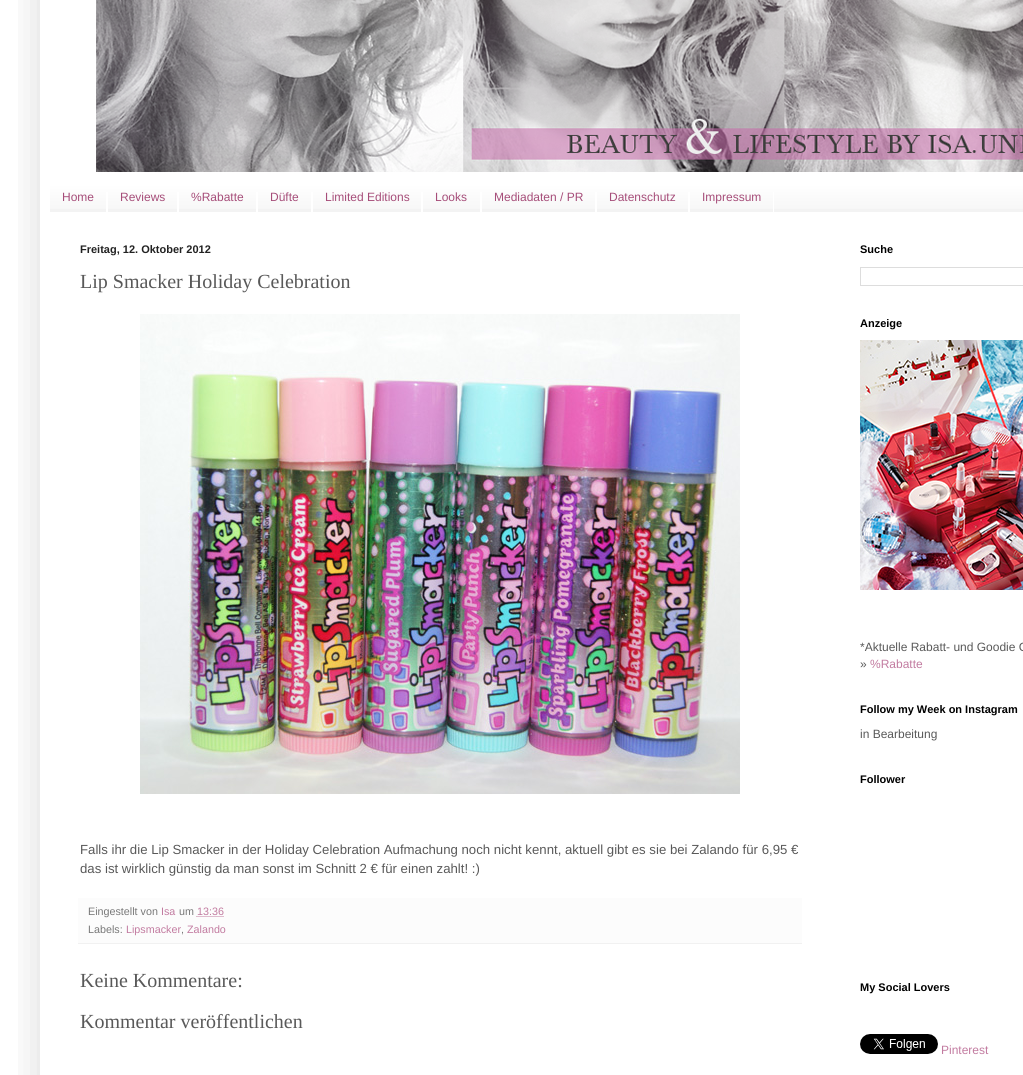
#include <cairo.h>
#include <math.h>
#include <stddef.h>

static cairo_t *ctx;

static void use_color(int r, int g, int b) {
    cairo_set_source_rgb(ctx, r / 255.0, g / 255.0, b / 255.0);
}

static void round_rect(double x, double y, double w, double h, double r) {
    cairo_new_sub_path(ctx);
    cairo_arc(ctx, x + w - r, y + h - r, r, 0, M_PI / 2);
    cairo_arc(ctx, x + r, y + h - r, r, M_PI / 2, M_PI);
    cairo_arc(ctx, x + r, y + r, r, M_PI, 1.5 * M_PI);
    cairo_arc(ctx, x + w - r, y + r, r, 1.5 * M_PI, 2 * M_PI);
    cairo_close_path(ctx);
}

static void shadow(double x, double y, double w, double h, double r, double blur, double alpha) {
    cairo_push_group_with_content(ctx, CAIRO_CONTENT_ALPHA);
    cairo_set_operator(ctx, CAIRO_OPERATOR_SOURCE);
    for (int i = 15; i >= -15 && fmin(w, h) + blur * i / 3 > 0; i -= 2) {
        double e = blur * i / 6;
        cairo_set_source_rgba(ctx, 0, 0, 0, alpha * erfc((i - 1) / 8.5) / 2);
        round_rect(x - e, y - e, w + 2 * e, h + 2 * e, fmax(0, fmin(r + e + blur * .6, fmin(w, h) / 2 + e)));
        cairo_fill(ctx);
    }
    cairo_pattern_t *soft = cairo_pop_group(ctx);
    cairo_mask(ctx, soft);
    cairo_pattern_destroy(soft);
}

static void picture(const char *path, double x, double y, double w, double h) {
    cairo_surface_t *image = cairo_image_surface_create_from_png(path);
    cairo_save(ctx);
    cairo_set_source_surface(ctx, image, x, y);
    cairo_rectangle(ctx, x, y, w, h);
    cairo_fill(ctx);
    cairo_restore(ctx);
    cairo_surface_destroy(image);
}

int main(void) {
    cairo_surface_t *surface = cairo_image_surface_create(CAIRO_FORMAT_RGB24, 1023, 1075);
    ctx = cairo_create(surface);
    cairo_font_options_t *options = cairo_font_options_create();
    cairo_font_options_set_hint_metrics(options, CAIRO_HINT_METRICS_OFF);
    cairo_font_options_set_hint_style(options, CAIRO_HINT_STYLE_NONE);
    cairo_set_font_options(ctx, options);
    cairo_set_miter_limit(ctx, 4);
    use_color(255, 255, 255);
    cairo_paint(ctx);
    cairo_save(ctx);
    cairo_rectangle(ctx, 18, 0, 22, 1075);
    cairo_clip(ctx);
    use_color(0, 0, 0);
    shadow(40, -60, 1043, 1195, 0, 20, 0.15);
    cairo_restore(ctx);
    picture("img1.png", 96, 0, 927, 172);
    use_color(243, 243, 243);
    cairo_rectangle(ctx, 50, 184, 973, 28);
    cairo_fill(ctx);
    picture("img2.png", 50, 183, 973, 26);
    use_color(255, 255, 255);
    cairo_rectangle(ctx, 106, 192, 2, 20);
    cairo_fill(ctx);
    cairo_select_font_face(ctx, "Liberation Sans", CAIRO_FONT_SLANT_NORMAL, CAIRO_FONT_WEIGHT_NORMAL);
    cairo_set_font_size(ctx, 12);
    use_color(166, 77, 121);
    cairo_move_to(ctx, 62, 201);
    cairo_show_text(ctx, "Home");
    use_color(255, 255, 255);
    cairo_rectangle(ctx, 177, 192, 2, 20);
    cairo_fill(ctx);
    use_color(166, 77, 121);
    cairo_move_to(ctx, 120, 201);
    cairo_show_text(ctx, "Reviews");
    use_color(255, 255, 255);
    cairo_rectangle(ctx, 256, 192, 2, 20);
    cairo_fill(ctx);
    use_color(166, 77, 121);
    cairo_move_to(ctx, 191, 201);
    cairo_show_text(ctx, "%Rabatte");
    use_color(255, 255, 255);
    cairo_rectangle(ctx, 311, 192, 2, 20);
    cairo_fill(ctx);
    use_color(166, 77, 121);
    cairo_move_to(ctx, 270, 201);
    cairo_show_text(ctx, "Düfte");
    use_color(255, 255, 255);
    cairo_rectangle(ctx, 421, 192, 2, 20);
    cairo_fill(ctx);
    use_color(166, 77, 121);
    cairo_move_to(ctx, 325, 201);
    cairo_show_text(ctx, "Limited Editions");
    use_color(255, 255, 255);
    cairo_rectangle(ctx, 480, 192, 2, 20);
    cairo_fill(ctx);
    use_color(166, 77, 121);
    cairo_move_to(ctx, 435, 201);
    cairo_show_text(ctx, "Looks");
    use_color(255, 255, 255);
    cairo_rectangle(ctx, 595, 192, 2, 20);
    cairo_fill(ctx);
    use_color(166, 77, 121);
    cairo_move_to(ctx, 494, 201);
    cairo_show_text(ctx, "Mediadaten / PR");
    use_color(255, 255, 255);
    cairo_rectangle(ctx, 688, 192, 2, 20);
    cairo_fill(ctx);
    use_color(166, 77, 121);
    cairo_move_to(ctx, 609, 201);
    cairo_show_text(ctx, "Datenschutz");
    use_color(255, 255, 255);
    cairo_rectangle(ctx, 773, 192, 1, 20);
    cairo_fill(ctx);
    use_color(166, 77, 121);
    cairo_move_to(ctx, 702, 201);
    cairo_show_text(ctx, "Impressum");
    cairo_select_font_face(ctx, "Liberation Sans", CAIRO_FONT_SLANT_NORMAL, CAIRO_FONT_WEIGHT_BOLD);
    cairo_set_font_size(ctx, 11);
    use_color(34, 34, 34);
    cairo_move_to(ctx, 80, 253);
    cairo_show_text(ctx, "Freitag, 12. Oktober 2012");
    cairo_select_font_face(ctx, "Liberation Serif", CAIRO_FONT_SLANT_NORMAL, CAIRO_FONT_WEIGHT_NORMAL);
    cairo_set_font_size(ctx, 20);
    use_color(89, 89, 89);
    cairo_move_to(ctx, 80, 288);
    cairo_show_text(ctx, "Lip Smacker Holiday Celebration");
    picture("img3.png", 140, 314, 600, 480);
    cairo_select_font_face(ctx, "Liberation Sans", CAIRO_FONT_SLANT_NORMAL, CAIRO_FONT_WEIGHT_NORMAL);
    cairo_set_font_size(ctx, 13.2);
    cairo_move_to(ctx, 80, 854);
    cairo_show_text(ctx, "Falls ihr die Lip Smacker in der Holiday Celebration Aufmachung noch nicht kennt, aktuell gibt es sie bei Zalando für 6,95 €");
    cairo_move_to(ctx, 80, 873);
    cairo_show_text(ctx, "das ist wirklich günstig da man sonst im Schnitt 2 € für einen zahlt! :)");
    use_color(252, 252, 252);
    cairo_rectangle(ctx, 78, 898, 724, 45);
    cairo_fill(ctx);
    use_color(241, 241, 241);
    cairo_rectangle(ctx, 78, 943, 724, 1);
    cairo_fill(ctx);
    cairo_set_font_size(ctx, 10.75);
    use_color(120, 120, 120);
    cairo_move_to(ctx, 88, 915);
    cairo_show_text(ctx, "Eingestellt von");
    use_color(194, 123, 160);
    cairo_move_to(ctx, 161, 915);
    cairo_show_text(ctx, "Isa");
    use_color(120, 120, 120);
    cairo_move_to(ctx, 179, 915);
    cairo_show_text(ctx, "um");
    use_color(194, 123, 160);
    cairo_move_to(ctx, 197, 915);
    cairo_show_text(ctx, "13:36");
    cairo_new_path(ctx);
    cairo_move_to(ctx, 196.5, 916.5);
    cairo_line_to(ctx, 223.5, 916.5);
    cairo_set_line_width(ctx, 1);
    cairo_set_dash(ctx, (double[]){1, 1}, 2, 0);
    cairo_stroke(ctx);
    use_color(120, 120, 120);
    cairo_move_to(ctx, 88, 933);
    cairo_show_text(ctx, "Labels:");
    use_color(194, 123, 160);
    cairo_move_to(ctx, 126, 933);
    cairo_show_text(ctx, "Lipsmacker");
    use_color(120, 120, 120);
    cairo_move_to(ctx, 181, 933);
    cairo_show_text(ctx, ",");
    use_color(194, 123, 160);
    cairo_move_to(ctx, 187, 933);
    cairo_show_text(ctx, "Zalando");
    cairo_select_font_face(ctx, "Liberation Serif", CAIRO_FONT_SLANT_NORMAL, CAIRO_FONT_WEIGHT_NORMAL);
    cairo_set_font_size(ctx, 20);
    use_color(89, 89, 89);
    cairo_move_to(ctx, 80, 987);
    cairo_show_text(ctx, "Keine Kommentare:");
    cairo_move_to(ctx, 80, 1028);
    cairo_show_text(ctx, "Kommentar veröffentlichen");
    cairo_select_font_face(ctx, "Liberation Sans", CAIRO_FONT_SLANT_NORMAL, CAIRO_FONT_WEIGHT_BOLD);
    cairo_set_font_size(ctx, 11);
    use_color(0, 0, 0);
    cairo_move_to(ctx, 860, 253);
    cairo_show_text(ctx, "Suche");
    cairo_rectangle(ctx, 860.5, 267.5, 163, 18);
    use_color(221, 221, 221);
    cairo_set_dash(ctx, NULL, 0, 0);
    cairo_stroke(ctx);
    use_color(0, 0, 0);
    cairo_move_to(ctx, 860, 327);
    cairo_show_text(ctx, "Anzeige");
    picture("img4.png", 860, 340, 163, 250);
    cairo_select_font_face(ctx, "Liberation Sans", CAIRO_FONT_SLANT_NORMAL, CAIRO_FONT_WEIGHT_NORMAL);
    cairo_set_font_size(ctx, 12);
    use_color(89, 89, 89);
    cairo_move_to(ctx, 860, 651);
    cairo_show_text(ctx, "*Aktuelle Rabatt- und Goodie C");
    cairo_move_to(ctx, 860, 668);
    cairo_show_text(ctx, "»");
    use_color(194, 123, 160);
    cairo_move_to(ctx, 870, 668);
    cairo_show_text(ctx, "%Rabatte");
    cairo_select_font_face(ctx, "Liberation Sans", CAIRO_FONT_SLANT_NORMAL, CAIRO_FONT_WEIGHT_BOLD);
    cairo_set_font_size(ctx, 11);
    use_color(0, 0, 0);
    cairo_move_to(ctx, 860, 713);
    cairo_show_text(ctx, "Follow my Week on Instagram");
    cairo_select_font_face(ctx, "Liberation Sans", CAIRO_FONT_SLANT_NORMAL, CAIRO_FONT_WEIGHT_NORMAL);
    cairo_set_font_size(ctx, 12);
    use_color(89, 89, 89);
    cairo_move_to(ctx, 860, 738);
    cairo_show_text(ctx, "in Bearbeitung");
    cairo_select_font_face(ctx, "Liberation Sans", CAIRO_FONT_SLANT_NORMAL, CAIRO_FONT_WEIGHT_BOLD);
    cairo_set_font_size(ctx, 11);
    use_color(0, 0, 0);
    cairo_move_to(ctx, 860, 783);
    cairo_show_text(ctx, "Follower");
    cairo_move_to(ctx, 860, 991);
    cairo_show_text(ctx, "My Social Lovers");
    picture("img5.png", 860, 1034, 78, 20);
    cairo_select_font_face(ctx, "Liberation Sans", CAIRO_FONT_SLANT_NORMAL, CAIRO_FONT_WEIGHT_NORMAL);
    cairo_set_font_size(ctx, 12);
    use_color(194, 123, 160);
    cairo_move_to(ctx, 941, 1054);
    cairo_show_text(ctx, "Pinterest");
    cairo_surface_write_to_png(surface, "result.png");
    cairo_font_options_destroy(options);
    cairo_destroy(ctx);
    cairo_surface_destroy(surface);
    return 0;
}
